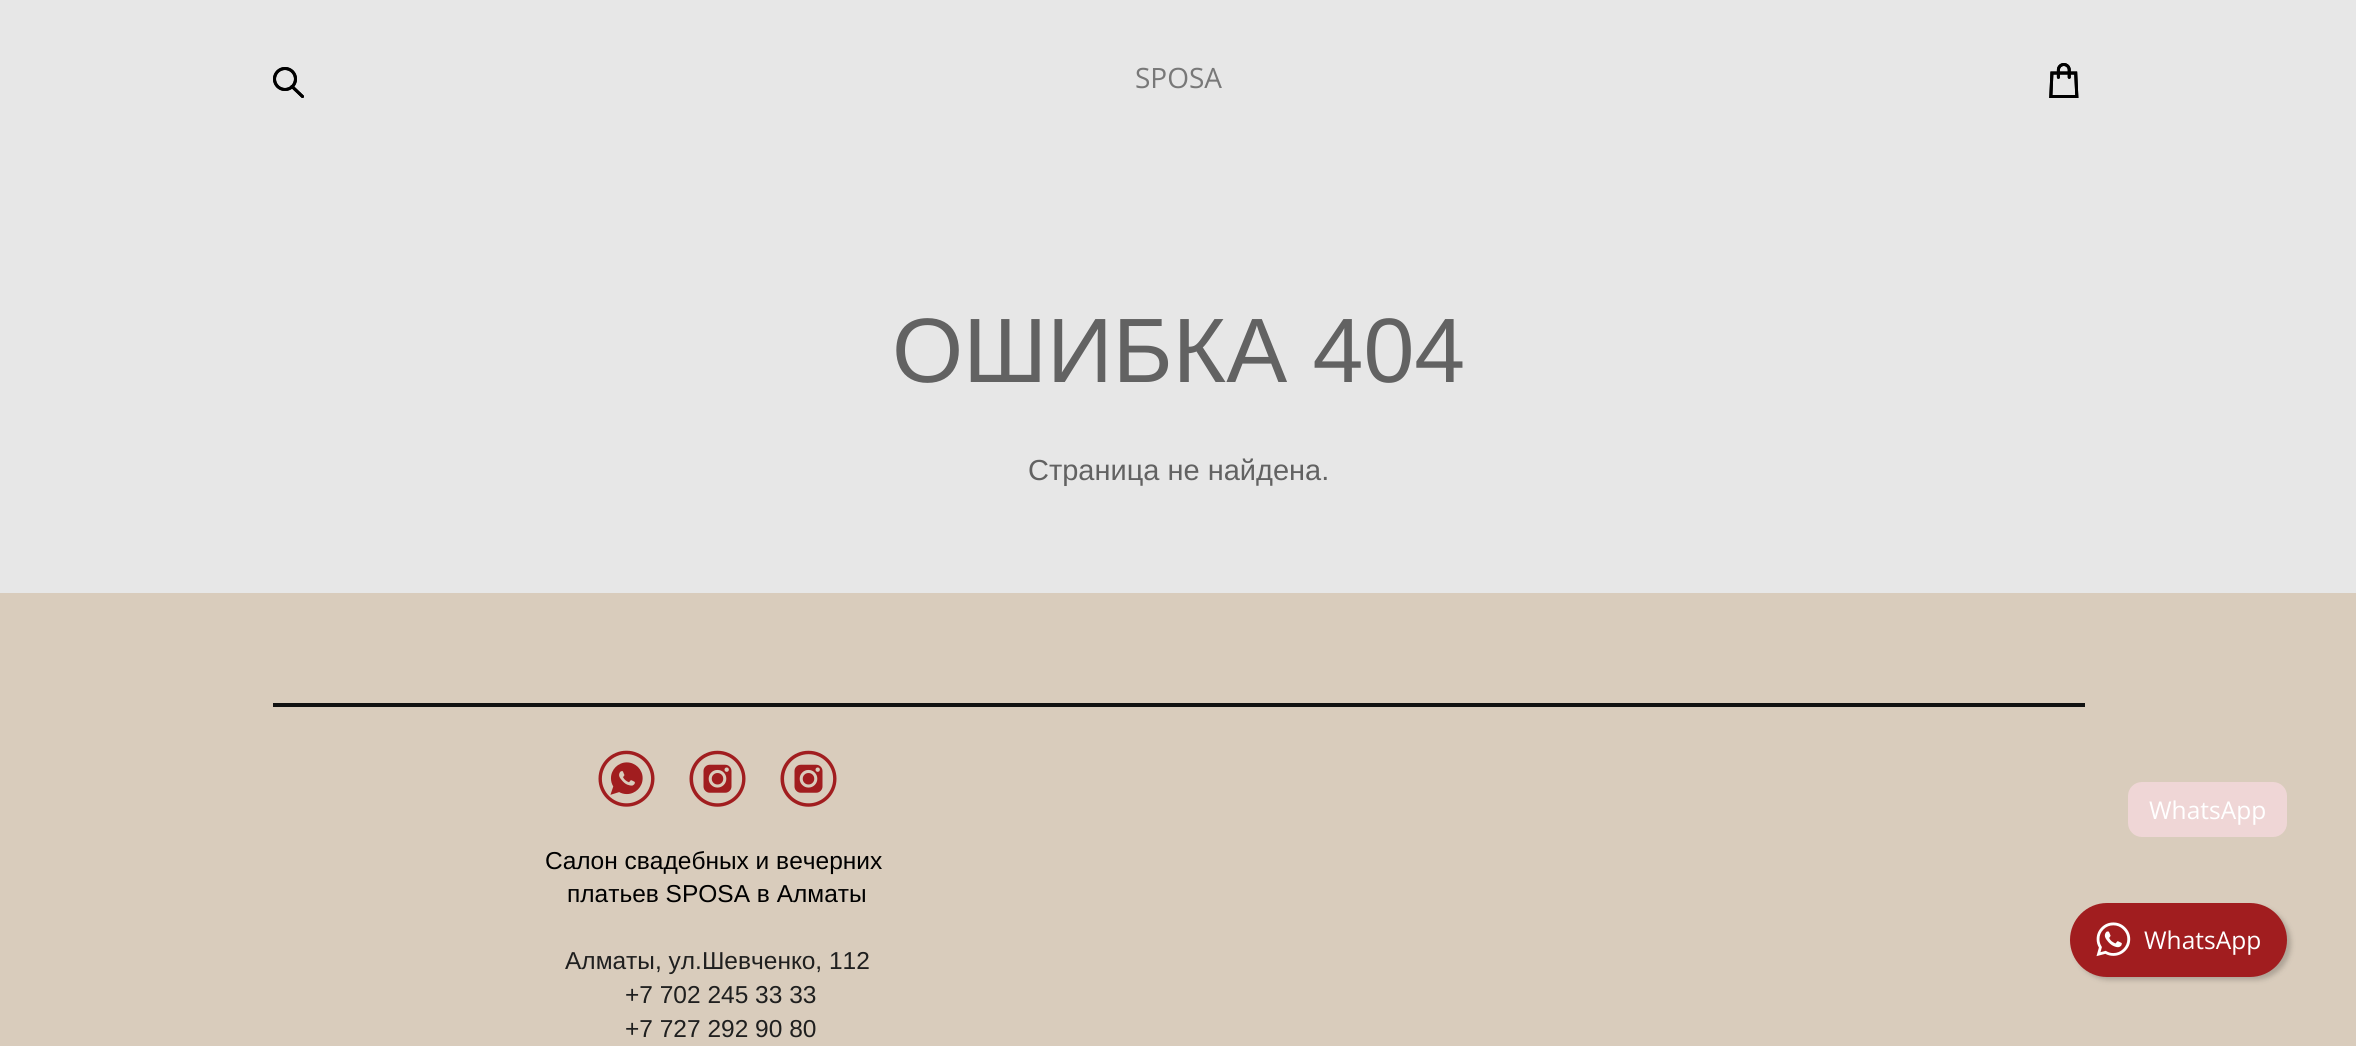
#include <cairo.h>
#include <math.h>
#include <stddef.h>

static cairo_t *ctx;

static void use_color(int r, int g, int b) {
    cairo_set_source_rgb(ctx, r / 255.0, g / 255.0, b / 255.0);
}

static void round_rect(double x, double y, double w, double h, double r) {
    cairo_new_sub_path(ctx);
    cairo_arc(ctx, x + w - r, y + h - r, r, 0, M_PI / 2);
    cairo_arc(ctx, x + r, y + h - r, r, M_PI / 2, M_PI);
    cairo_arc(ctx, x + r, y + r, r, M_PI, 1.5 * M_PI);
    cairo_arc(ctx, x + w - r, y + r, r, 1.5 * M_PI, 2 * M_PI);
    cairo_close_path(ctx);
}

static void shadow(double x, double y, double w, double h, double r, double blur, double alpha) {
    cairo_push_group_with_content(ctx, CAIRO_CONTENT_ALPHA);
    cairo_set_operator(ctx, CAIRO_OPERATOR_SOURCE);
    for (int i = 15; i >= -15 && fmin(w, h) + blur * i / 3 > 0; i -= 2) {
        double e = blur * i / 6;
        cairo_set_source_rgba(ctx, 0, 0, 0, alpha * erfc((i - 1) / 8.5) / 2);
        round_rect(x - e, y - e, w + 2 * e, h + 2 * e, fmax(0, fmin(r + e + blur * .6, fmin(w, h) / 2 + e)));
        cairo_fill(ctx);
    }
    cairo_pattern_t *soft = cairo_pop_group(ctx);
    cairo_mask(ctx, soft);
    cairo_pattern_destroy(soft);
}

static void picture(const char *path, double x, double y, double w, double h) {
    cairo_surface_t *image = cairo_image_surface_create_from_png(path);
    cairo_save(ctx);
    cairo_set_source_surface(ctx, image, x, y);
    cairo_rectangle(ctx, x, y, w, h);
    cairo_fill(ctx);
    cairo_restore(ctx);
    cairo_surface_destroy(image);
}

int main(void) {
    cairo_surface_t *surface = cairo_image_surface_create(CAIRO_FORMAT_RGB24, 2356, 1046);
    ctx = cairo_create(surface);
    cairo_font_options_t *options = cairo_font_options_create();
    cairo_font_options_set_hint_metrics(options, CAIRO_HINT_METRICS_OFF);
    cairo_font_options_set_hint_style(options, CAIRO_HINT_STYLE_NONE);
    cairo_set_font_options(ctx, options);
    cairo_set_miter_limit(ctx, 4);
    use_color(231, 231, 231);
    cairo_paint(ctx);
    cairo_arc(ctx, 285, 79, 10.5, 0, 2 * M_PI);
    use_color(0, 0, 0);
    cairo_set_line_width(ctx, 3);
    cairo_stroke(ctx);
    cairo_new_path(ctx);
    cairo_move_to(ctx, 292, 86.5);
    cairo_line_to(ctx, 302.5, 96.5);
    cairo_set_line_cap(ctx, CAIRO_LINE_CAP_ROUND);
    cairo_set_line_join(ctx, CAIRO_LINE_JOIN_ROUND);
    cairo_stroke(ctx);
    cairo_arc(ctx, 285, 79, 10.5, 0, 2 * M_PI);
    cairo_set_line_cap(ctx, CAIRO_LINE_CAP_BUTT);
    cairo_set_line_join(ctx, CAIRO_LINE_JOIN_MITER);
    cairo_stroke(ctx);
    cairo_new_path(ctx);
    cairo_move_to(ctx, 292, 86.5);
    cairo_line_to(ctx, 302.5, 96.5);
    cairo_set_line_cap(ctx, CAIRO_LINE_CAP_ROUND);
    cairo_set_line_join(ctx, CAIRO_LINE_JOIN_ROUND);
    cairo_stroke(ctx);
    picture("img2.png", 2049, 63, 30, 35);
    picture("img1.png", 2049, 63, 30, 35);
    cairo_select_font_face(ctx, "Open Sans", CAIRO_FONT_SLANT_NORMAL, CAIRO_FONT_WEIGHT_NORMAL);
    cairo_set_font_size(ctx, 28);
    use_color(120, 120, 120);
    cairo_move_to(ctx, 1135, 88);
    cairo_show_text(ctx, "SPOSA");
    cairo_select_font_face(ctx, "Liberation Sans", CAIRO_FONT_SLANT_NORMAL, CAIRO_FONT_WEIGHT_NORMAL);
    cairo_set_font_size(ctx, 91.5);
    use_color(98, 98, 98);
    cairo_move_to(ctx, 892, 382);
    cairo_show_text(ctx, "ОШИБКА 404");
    cairo_set_font_size(ctx, 29);
    cairo_move_to(ctx, 1028, 480);
    cairo_show_text(ctx, "Страница не найдена.");
    use_color(217, 204, 188);
    cairo_rectangle(ctx, 0, 593, 2356, 453);
    cairo_fill(ctx);
    use_color(17, 17, 17);
    cairo_rectangle(ctx, 273, 703, 1812, 4);
    cairo_fill(ctx);
    picture("img3.png", 598, 750, 57, 57);
    picture("img4.png", 689, 750, 57, 57);
    picture("img4.png", 780, 750, 57, 57);
    cairo_set_font_size(ctx, 24.5);
    use_color(0, 0, 0);
    cairo_move_to(ctx, 545, 869);
    cairo_show_text(ctx, "Салон свадебных и вечерних");
    cairo_move_to(ctx, 567, 902);
    cairo_show_text(ctx, "платьев SPOSA в Алматы");
    use_color(31, 31, 31);
    cairo_move_to(ctx, 565, 969);
    cairo_show_text(ctx, "Алматы, ул.Шевченко, 112");
    cairo_move_to(ctx, 625, 1003);
    cairo_show_text(ctx, "+7 702 245 33 33");
    cairo_move_to(ctx, 625, 1037);
    cairo_show_text(ctx, "+7 727 292 90 80");
    use_color(239, 214, 214);
    round_rect(2128, 782, 159, 55, 14);
    cairo_fill(ctx);
    cairo_select_font_face(ctx, "Open Sans", CAIRO_FONT_SLANT_NORMAL, CAIRO_FONT_WEIGHT_NORMAL);
    use_color(255, 255, 255);
    cairo_move_to(ctx, 2149, 819);
    cairo_show_text(ctx, "WhatsApp");
    use_color(0, 0, 0);
    shadow(2074, 907, 217, 73, 36.5, 2.5, 0.2);
    use_color(161, 29, 31);
    round_rect(2070, 903, 217, 74, 37);
    cairo_fill(ctx);
    picture("img5.png", 2096, 922, 35, 35);
    use_color(255, 255, 255);
    cairo_move_to(ctx, 2144, 949);
    cairo_show_text(ctx, "WhatsApp");
    cairo_surface_write_to_png(surface, "result.png");
    cairo_font_options_destroy(options);
    cairo_destroy(ctx);
    cairo_surface_destroy(surface);
    return 0;
}
